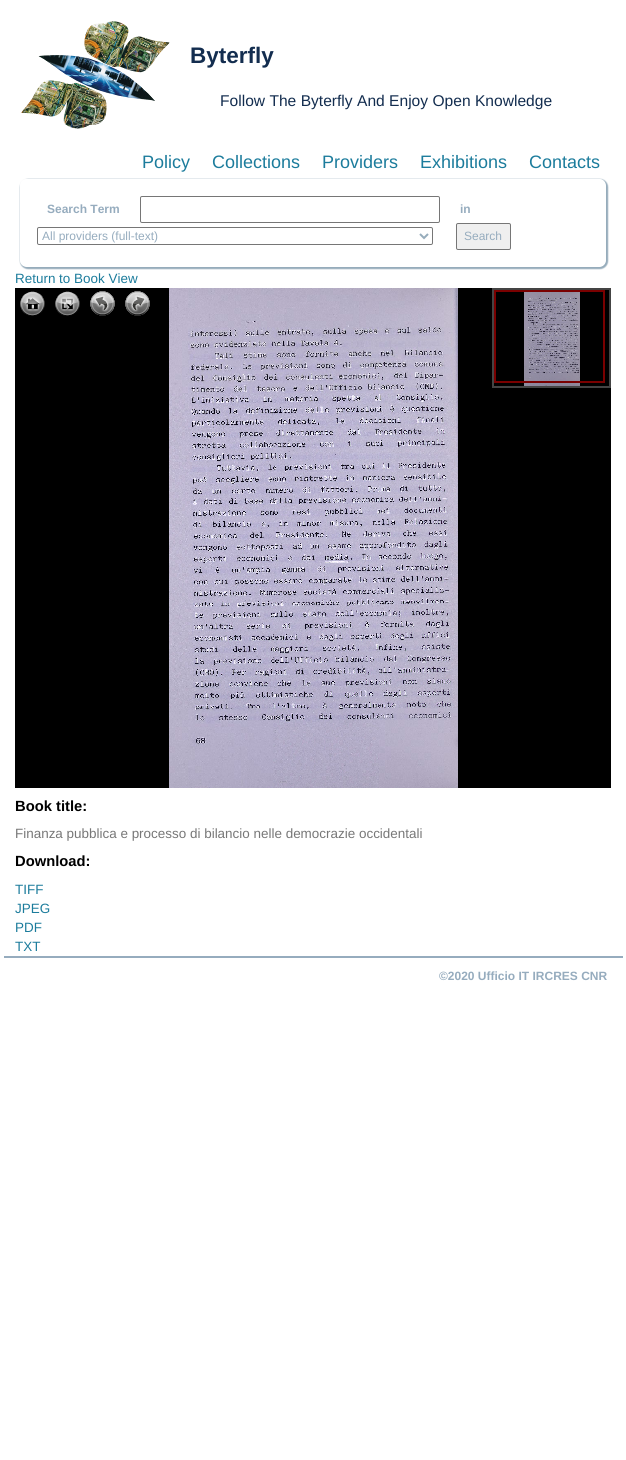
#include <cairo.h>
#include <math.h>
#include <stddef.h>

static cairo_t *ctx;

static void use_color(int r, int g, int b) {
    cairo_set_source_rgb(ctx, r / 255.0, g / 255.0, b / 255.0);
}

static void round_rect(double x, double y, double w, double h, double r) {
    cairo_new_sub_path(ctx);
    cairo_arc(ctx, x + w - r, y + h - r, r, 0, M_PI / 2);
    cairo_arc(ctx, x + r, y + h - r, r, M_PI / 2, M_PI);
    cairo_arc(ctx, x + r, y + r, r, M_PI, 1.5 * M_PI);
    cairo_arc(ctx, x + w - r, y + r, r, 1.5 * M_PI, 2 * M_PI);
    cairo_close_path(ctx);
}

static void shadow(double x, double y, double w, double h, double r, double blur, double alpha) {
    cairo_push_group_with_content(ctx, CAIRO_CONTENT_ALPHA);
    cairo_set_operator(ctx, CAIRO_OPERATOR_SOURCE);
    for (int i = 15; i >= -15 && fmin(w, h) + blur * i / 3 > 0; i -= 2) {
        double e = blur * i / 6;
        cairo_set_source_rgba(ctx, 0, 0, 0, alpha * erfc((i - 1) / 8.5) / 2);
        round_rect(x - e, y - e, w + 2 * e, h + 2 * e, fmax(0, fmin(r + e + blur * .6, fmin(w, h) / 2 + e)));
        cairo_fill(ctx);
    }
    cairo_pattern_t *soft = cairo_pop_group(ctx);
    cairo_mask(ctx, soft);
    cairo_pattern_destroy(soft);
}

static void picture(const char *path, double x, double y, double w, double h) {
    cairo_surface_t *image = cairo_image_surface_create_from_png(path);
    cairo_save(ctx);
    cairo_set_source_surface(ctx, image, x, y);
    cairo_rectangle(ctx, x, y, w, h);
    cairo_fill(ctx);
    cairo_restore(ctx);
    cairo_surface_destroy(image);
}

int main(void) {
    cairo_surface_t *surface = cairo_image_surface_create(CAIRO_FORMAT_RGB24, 626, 1460);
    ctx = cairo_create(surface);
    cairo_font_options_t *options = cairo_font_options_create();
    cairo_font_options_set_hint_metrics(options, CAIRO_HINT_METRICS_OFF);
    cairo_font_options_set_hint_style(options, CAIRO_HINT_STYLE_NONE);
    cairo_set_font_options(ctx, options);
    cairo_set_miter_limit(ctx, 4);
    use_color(255, 255, 255);
    cairo_paint(ctx);
    picture("img1.png", 21, 21, 149, 108);
    cairo_select_font_face(ctx, "Liberation Sans", CAIRO_FONT_SLANT_NORMAL, CAIRO_FONT_WEIGHT_BOLD);
    cairo_set_font_size(ctx, 22.5);
    use_color(19, 45, 79);
    cairo_move_to(ctx, 190, 63);
    cairo_show_text(ctx, "Byterfly");
    cairo_select_font_face(ctx, "Liberation Sans", CAIRO_FONT_SLANT_NORMAL, CAIRO_FONT_WEIGHT_NORMAL);
    cairo_set_font_size(ctx, 15.6);
    cairo_move_to(ctx, 220, 106);
    cairo_show_text(ctx, "Follow The Byterfly And Enjoy Open Knowledge");
    cairo_set_font_size(ctx, 18);
    use_color(28, 124, 156);
    cairo_move_to(ctx, 142, 168);
    cairo_show_text(ctx, "Policy");
    cairo_move_to(ctx, 212, 168);
    cairo_show_text(ctx, "Collections");
    cairo_move_to(ctx, 322, 168);
    cairo_show_text(ctx, "Providers");
    cairo_move_to(ctx, 420, 168);
    cairo_show_text(ctx, "Exhibitions");
    cairo_move_to(ctx, 529, 168);
    cairo_show_text(ctx, "Contacts");
    cairo_save(ctx);
    cairo_set_fill_rule(ctx, CAIRO_FILL_RULE_EVEN_ODD);
    cairo_new_path(ctx);
    cairo_move_to(ctx, 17, 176);
    cairo_line_to(ctx, 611, 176);
    cairo_line_to(ctx, 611, 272);
    cairo_line_to(ctx, 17, 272);
    cairo_close_path(ctx);
    cairo_move_to(ctx, 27, 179);
    cairo_line_to(ctx, 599, 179);
    cairo_curve_to(ctx, 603, 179, 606, 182, 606, 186);
    cairo_line_to(ctx, 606, 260);
    cairo_curve_to(ctx, 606, 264, 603, 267, 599, 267);
    cairo_line_to(ctx, 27, 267);
    cairo_curve_to(ctx, 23, 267, 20, 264, 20, 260);
    cairo_line_to(ctx, 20, 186);
    cairo_curve_to(ctx, 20, 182, 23, 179, 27, 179);
    cairo_close_path(ctx);
    cairo_clip(ctx);
    use_color(150, 172, 187);
    shadow(20, 179, 588, 90, 8, 0.5, 1);
    cairo_restore(ctx);
    cairo_select_font_face(ctx, "Liberation Sans", CAIRO_FONT_SLANT_NORMAL, CAIRO_FONT_WEIGHT_BOLD);
    cairo_set_font_size(ctx, 12);
    use_color(150, 172, 190);
    cairo_move_to(ctx, 47, 213);
    cairo_show_text(ctx, "Search Term");
    round_rect(140.5, 196.5, 299, 26, 1.5);
    use_color(118, 118, 118);
    cairo_set_line_width(ctx, 1);
    cairo_stroke(ctx);
    use_color(150, 172, 190);
    cairo_move_to(ctx, 460, 213);
    cairo_show_text(ctx, "in");
    round_rect(37.5, 227.5, 395, 17, 1.5);
    use_color(118, 118, 118);
    cairo_stroke(ctx);
    cairo_new_path(ctx);
    cairo_move_to(ctx, 420, 234);
    cairo_line_to(ctx, 424, 238);
    cairo_line_to(ctx, 428, 234);
    use_color(150, 172, 187);
    cairo_set_line_width(ctx, 2);
    cairo_stroke(ctx);
    cairo_select_font_face(ctx, "Liberation Sans", CAIRO_FONT_SLANT_NORMAL, CAIRO_FONT_WEIGHT_NORMAL);
    use_color(150, 172, 190);
    cairo_move_to(ctx, 42, 240);
    cairo_show_text(ctx, "All providers (full-text)");
    use_color(239, 239, 239);
    round_rect(456.5, 223.5, 54, 26, 1.5);
    cairo_fill_preserve(ctx);
    use_color(118, 118, 118);
    cairo_set_line_width(ctx, 1);
    cairo_stroke(ctx);
    use_color(150, 172, 190);
    cairo_move_to(ctx, 464, 240);
    cairo_show_text(ctx, "Search");
    cairo_set_font_size(ctx, 13.45);
    use_color(28, 124, 156);
    cairo_move_to(ctx, 15, 283);
    cairo_show_text(ctx, "Return to Book View");
    use_color(0, 0, 0);
    cairo_rectangle(ctx, 15, 288, 596, 500);
    cairo_fill(ctx);
    picture("img2.png", 169, 288, 289, 500);
    picture("img3.png", 20, 291, 25, 25);
    picture("img4.png", 20, 291, 25, 25);
    picture("img5.png", 55, 291, 25, 25);
    picture("img6.png", 55, 291, 25, 25);
    picture("img7.png", 90, 291, 25, 25);
    picture("img8.png", 90, 291, 25, 25);
    picture("img9.png", 125, 291, 25, 25);
    picture("img10.png", 125, 291, 25, 25);
    cairo_rectangle(ctx, 493, 289, 117, 98);
    use_color(68, 68, 68);
    cairo_set_line_width(ctx, 2);
    cairo_stroke(ctx);
    picture("img11.png", 524, 292, 56, 94);
    cairo_rectangle(ctx, 495, 291, 109, 91);
    use_color(122, 0, 0);
    cairo_stroke(ctx);
    cairo_select_font_face(ctx, "Liberation Sans", CAIRO_FONT_SLANT_NORMAL, CAIRO_FONT_WEIGHT_BOLD);
    cairo_set_font_size(ctx, 14.75);
    use_color(0, 0, 0);
    cairo_move_to(ctx, 15, 811);
    cairo_show_text(ctx, "Book title:");
    cairo_select_font_face(ctx, "Liberation Sans", CAIRO_FONT_SLANT_NORMAL, CAIRO_FONT_WEIGHT_NORMAL);
    cairo_set_font_size(ctx, 13.45);
    use_color(119, 119, 119);
    cairo_move_to(ctx, 15, 838);
    cairo_show_text(ctx, "Finanza pubblica e processo di bilancio nelle democrazie occidentali");
    cairo_select_font_face(ctx, "Liberation Sans", CAIRO_FONT_SLANT_NORMAL, CAIRO_FONT_WEIGHT_BOLD);
    cairo_set_font_size(ctx, 14.75);
    use_color(0, 0, 0);
    cairo_move_to(ctx, 15, 866);
    cairo_show_text(ctx, "Download:");
    cairo_select_font_face(ctx, "Liberation Sans", CAIRO_FONT_SLANT_NORMAL, CAIRO_FONT_WEIGHT_NORMAL);
    cairo_set_font_size(ctx, 13.45);
    use_color(28, 124, 156);
    cairo_move_to(ctx, 15, 894);
    cairo_show_text(ctx, "TIFF");
    cairo_move_to(ctx, 15, 913);
    cairo_show_text(ctx, "JPEG");
    cairo_move_to(ctx, 15, 932);
    cairo_show_text(ctx, "PDF");
    cairo_move_to(ctx, 15, 951);
    cairo_show_text(ctx, "TXT");
    use_color(150, 172, 190);
    cairo_rectangle(ctx, 4, 956, 619, 2);
    cairo_fill(ctx);
    cairo_select_font_face(ctx, "Liberation Sans", CAIRO_FONT_SLANT_NORMAL, CAIRO_FONT_WEIGHT_BOLD);
    cairo_set_font_size(ctx, 12);
    cairo_move_to(ctx, 439, 980);
    cairo_show_text(ctx, "©2020 Ufficio IT IRCRES CNR");
    cairo_surface_write_to_png(surface, "result.png");
    cairo_font_options_destroy(options);
    cairo_destroy(ctx);
    cairo_surface_destroy(surface);
    return 0;
}
